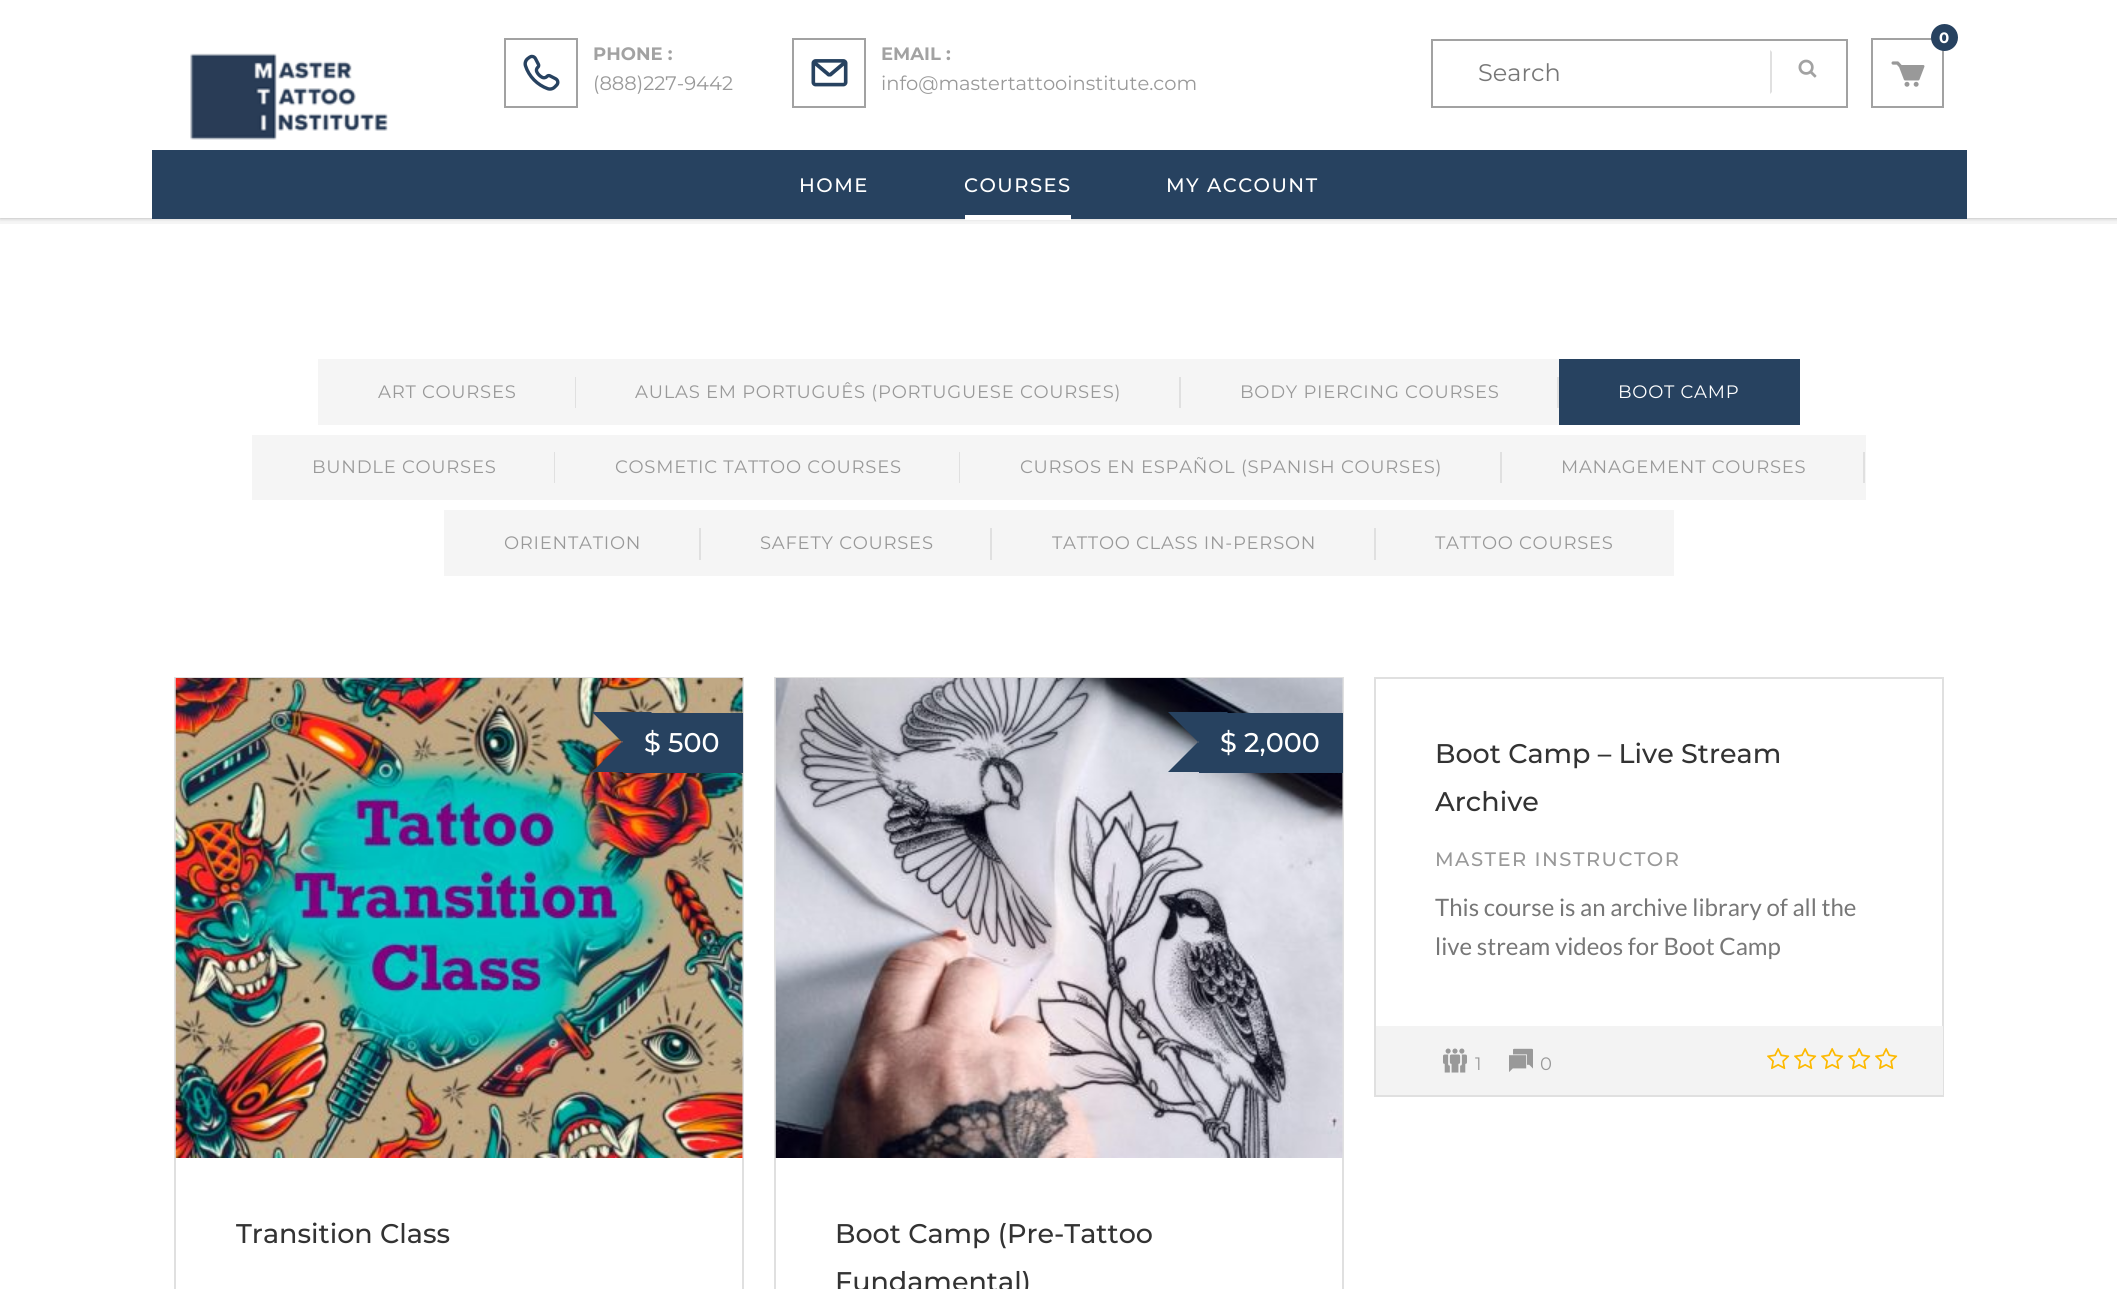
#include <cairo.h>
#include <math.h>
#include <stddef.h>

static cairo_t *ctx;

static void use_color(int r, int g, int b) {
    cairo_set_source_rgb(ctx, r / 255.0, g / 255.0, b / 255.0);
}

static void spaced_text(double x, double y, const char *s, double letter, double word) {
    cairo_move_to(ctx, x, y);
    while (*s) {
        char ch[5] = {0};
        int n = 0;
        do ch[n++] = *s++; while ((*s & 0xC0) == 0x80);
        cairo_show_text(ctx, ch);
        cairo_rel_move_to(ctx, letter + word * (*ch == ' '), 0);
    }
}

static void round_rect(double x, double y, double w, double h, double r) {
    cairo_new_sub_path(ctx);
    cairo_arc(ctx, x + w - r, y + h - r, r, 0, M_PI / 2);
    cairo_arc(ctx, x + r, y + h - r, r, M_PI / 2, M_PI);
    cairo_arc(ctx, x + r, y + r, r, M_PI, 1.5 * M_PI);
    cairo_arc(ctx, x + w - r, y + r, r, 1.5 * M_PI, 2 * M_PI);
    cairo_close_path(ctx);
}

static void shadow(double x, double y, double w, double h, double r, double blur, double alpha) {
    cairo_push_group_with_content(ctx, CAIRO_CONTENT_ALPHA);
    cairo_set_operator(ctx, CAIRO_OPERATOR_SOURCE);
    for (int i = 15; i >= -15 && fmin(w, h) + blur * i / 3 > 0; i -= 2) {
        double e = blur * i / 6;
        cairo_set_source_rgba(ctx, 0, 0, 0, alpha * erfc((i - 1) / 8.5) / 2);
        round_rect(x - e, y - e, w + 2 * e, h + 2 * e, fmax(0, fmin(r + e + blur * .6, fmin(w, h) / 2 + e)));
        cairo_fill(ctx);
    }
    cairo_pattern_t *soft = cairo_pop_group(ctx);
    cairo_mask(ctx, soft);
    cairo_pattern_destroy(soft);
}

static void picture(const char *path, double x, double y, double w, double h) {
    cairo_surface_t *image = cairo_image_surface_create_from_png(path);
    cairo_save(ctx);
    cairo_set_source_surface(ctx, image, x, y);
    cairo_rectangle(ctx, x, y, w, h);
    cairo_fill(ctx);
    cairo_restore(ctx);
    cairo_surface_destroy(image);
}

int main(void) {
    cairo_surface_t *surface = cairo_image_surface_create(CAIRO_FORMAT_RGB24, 2117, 1289);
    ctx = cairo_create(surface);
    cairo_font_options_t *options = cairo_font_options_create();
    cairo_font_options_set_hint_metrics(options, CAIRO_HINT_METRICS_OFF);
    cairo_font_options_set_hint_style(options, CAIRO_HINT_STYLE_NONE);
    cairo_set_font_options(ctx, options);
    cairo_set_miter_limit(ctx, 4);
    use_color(255, 255, 255);
    cairo_paint(ctx);
    use_color(245, 245, 245);
    cairo_rectangle(ctx, 0, 218, 2117, 6);
    cairo_fill(ctx);
    use_color(0, 0, 0);
    shadow(0, 0, 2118, 218, 0, 2, 0.3);
    use_color(255, 255, 255);
    cairo_rectangle(ctx, 0, 0, 2117, 218);
    cairo_fill(ctx);
    picture("img1.png", 190, 53, 198, 87);
    cairo_rectangle(ctx, 505, 39, 72, 68);
    use_color(162, 162, 162);
    cairo_stroke(ctx);
    picture("img2.png", 523, 54, 37, 37);
    cairo_select_font_face(ctx, "Montserrat", CAIRO_FONT_SLANT_NORMAL, CAIRO_FONT_WEIGHT_BOLD);
    cairo_set_font_size(ctx, 18);
    cairo_move_to(ctx, 593, 60);
    cairo_show_text(ctx, "PHONE :");
    cairo_select_font_face(ctx, "Montserrat", CAIRO_FONT_SLANT_NORMAL, CAIRO_FONT_WEIGHT_NORMAL);
    cairo_set_font_size(ctx, 19.5);
    use_color(153, 153, 153);
    cairo_move_to(ctx, 593, 90);
    cairo_show_text(ctx, "(888)227-9442");
    cairo_rectangle(ctx, 793, 39, 72, 68);
    use_color(162, 162, 162);
    cairo_stroke(ctx);
    picture("img3.png", 811, 59, 37, 28);
    cairo_select_font_face(ctx, "Montserrat", CAIRO_FONT_SLANT_NORMAL, CAIRO_FONT_WEIGHT_BOLD);
    cairo_set_font_size(ctx, 18);
    cairo_move_to(ctx, 881, 60);
    cairo_show_text(ctx, "EMAIL :");
    cairo_select_font_face(ctx, "Montserrat", CAIRO_FONT_SLANT_NORMAL, CAIRO_FONT_WEIGHT_NORMAL);
    cairo_set_font_size(ctx, 19.5);
    use_color(153, 153, 153);
    cairo_move_to(ctx, 881, 90);
    cairo_show_text(ctx, "info@mastertattooinstitute.com");
    cairo_rectangle(ctx, 1872, 39, 71, 68);
    use_color(162, 162, 162);
    cairo_stroke(ctx);
    use_color(39, 66, 96);
    cairo_arc(ctx, 1944.5, 37.5, 13.5, 0, 2 * M_PI);
    cairo_fill(ctx);
    cairo_select_font_face(ctx, "Montserrat", CAIRO_FONT_SLANT_NORMAL, CAIRO_FONT_WEIGHT_BOLD);
    cairo_set_font_size(ctx, 15);
    use_color(255, 255, 255);
    cairo_move_to(ctx, 1939, 43);
    cairo_show_text(ctx, "0");
    picture("img4.png", 1891, 61, 34, 26);
    cairo_rectangle(ctx, 1432, 40, 415, 67);
    use_color(162, 162, 162);
    cairo_stroke(ctx);
    cairo_select_font_face(ctx, "Montserrat", CAIRO_FONT_SLANT_NORMAL, CAIRO_FONT_WEIGHT_NORMAL);
    cairo_set_font_size(ctx, 24);
    use_color(119, 119, 119);
    cairo_move_to(ctx, 1478, 81);
    cairo_show_text(ctx, "Search");
    use_color(224, 224, 224);
    cairo_new_path(ctx);
    cairo_move_to(ctx, 1770, 94);
    cairo_line_to(ctx, 1770, 50);
    cairo_line_to(ctx, 1772, 52);
    cairo_line_to(ctx, 1772, 92);
    cairo_close_path(ctx);
    cairo_fill(ctx);
    picture("img5.png", 1798, 59, 19, 19);
    use_color(39, 66, 96);
    cairo_rectangle(ctx, 152, 150, 1815, 69);
    cairo_fill(ctx);
    cairo_select_font_face(ctx, "Montserrat Medium", CAIRO_FONT_SLANT_NORMAL, CAIRO_FONT_WEIGHT_NORMAL);
    cairo_set_font_size(ctx, 19.5);
    use_color(255, 255, 255);
    spaced_text(799, 192, "HOME", 1.5, 0);
    spaced_text(964, 192, "COURSES", 1.5, 0);
    cairo_rectangle(ctx, 965, 215, 106, 5);
    cairo_fill(ctx);
    spaced_text(1166, 192, "MY ACCOUNT", 1.5, 0);
    use_color(245, 245, 245);
    cairo_rectangle(ctx, 318, 359, 1241, 66);
    cairo_fill(ctx);
    cairo_select_font_face(ctx, "Montserrat", CAIRO_FONT_SLANT_NORMAL, CAIRO_FONT_WEIGHT_NORMAL);
    cairo_set_font_size(ctx, 18);
    use_color(153, 153, 153);
    spaced_text(378, 398, "ART COURSES", 0.75, 0);
    use_color(224, 224, 224);
    cairo_rectangle(ctx, 575, 377, 1, 31);
    cairo_fill(ctx);
    use_color(153, 153, 153);
    spaced_text(635, 398, "AULAS EM PORTUGUÊS (PORTUGUESE COURSES)", 0.75, 0);
    use_color(224, 224, 224);
    cairo_rectangle(ctx, 1179, 377, 2, 31);
    cairo_fill(ctx);
    use_color(153, 153, 153);
    spaced_text(1240, 398, "BODY PIERCING COURSES", 0.75, 0);
    use_color(224, 224, 224);
    cairo_rectangle(ctx, 1557, 377, 2, 31);
    cairo_fill(ctx);
    use_color(39, 66, 96);
    cairo_rectangle(ctx, 1559, 359, 241, 66);
    cairo_fill(ctx);
    use_color(255, 255, 255);
    spaced_text(1618, 398, "BOOT CAMP", 0.75, 0);
    use_color(245, 245, 245);
    cairo_rectangle(ctx, 252, 435, 1614, 65);
    cairo_fill(ctx);
    use_color(153, 153, 153);
    spaced_text(312, 473, "BUNDLE COURSES", 0.75, 0);
    use_color(224, 224, 224);
    cairo_rectangle(ctx, 554, 452, 1, 31);
    cairo_fill(ctx);
    use_color(153, 153, 153);
    spaced_text(615, 473, "COSMETIC TATTOO COURSES", 0.75, 0);
    use_color(224, 224, 224);
    cairo_rectangle(ctx, 959, 452, 1, 31);
    cairo_fill(ctx);
    use_color(153, 153, 153);
    spaced_text(1020, 473, "CURSOS EN ESPAÑOL (SPANISH COURSES)", 0.75, 0);
    use_color(224, 224, 224);
    cairo_rectangle(ctx, 1500, 452, 2, 31);
    cairo_fill(ctx);
    use_color(153, 153, 153);
    spaced_text(1561, 473, "MANAGEMENT COURSES", 0.75, 0);
    use_color(224, 224, 224);
    cairo_rectangle(ctx, 1863, 452, 2, 31);
    cairo_fill(ctx);
    use_color(245, 245, 245);
    cairo_rectangle(ctx, 444, 510, 1230, 66);
    cairo_fill(ctx);
    use_color(153, 153, 153);
    spaced_text(504, 549, "ORIENTATION", 0.75, 0);
    use_color(224, 224, 224);
    cairo_rectangle(ctx, 699, 528, 2, 32);
    cairo_fill(ctx);
    use_color(153, 153, 153);
    spaced_text(760, 549, "SAFETY COURSES", 0.75, 0);
    use_color(224, 224, 224);
    cairo_rectangle(ctx, 990, 528, 2, 32);
    cairo_fill(ctx);
    use_color(153, 153, 153);
    spaced_text(1052, 549, "TATTOO CLASS IN-PERSON", 0.75, 0);
    use_color(224, 224, 224);
    cairo_rectangle(ctx, 1374, 528, 2, 32);
    cairo_fill(ctx);
    use_color(153, 153, 153);
    spaced_text(1435, 549, "TATTOO COURSES", 0.75, 0);
    cairo_rectangle(ctx, 175, 678, 568, 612);
    use_color(224, 224, 224);
    cairo_stroke(ctx);
    picture("img6.png", 175, 678, 568, 480);
    use_color(39, 66, 96);
    cairo_rectangle(ctx, 623, 713, 120, 60);
    cairo_fill(ctx);
    cairo_select_font_face(ctx, "Montserrat Medium", CAIRO_FONT_SLANT_NORMAL, CAIRO_FONT_WEIGHT_NORMAL);
    cairo_set_font_size(ctx, 27);
    use_color(255, 255, 255);
    cairo_move_to(ctx, 644, 752);
    cairo_show_text(ctx, "$ 500");
    use_color(39, 66, 96);
    cairo_new_path(ctx);
    cairo_move_to(ctx, 652, 772);
    cairo_line_to(ctx, 592, 772);
    cairo_line_to(ctx, 622, 742);
    cairo_close_path(ctx);
    cairo_move_to(ctx, 592, 712);
    cairo_line_to(ctx, 652, 712);
    cairo_line_to(ctx, 622, 742);
    cairo_close_path(ctx);
    cairo_fill(ctx);
    use_color(51, 51, 51);
    cairo_move_to(ctx, 236, 1243);
    cairo_show_text(ctx, "Transition Class");
    cairo_rectangle(ctx, 775, 678, 568, 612);
    use_color(224, 224, 224);
    cairo_stroke(ctx);
    picture("img7.png", 775, 678, 568, 480);
    use_color(39, 66, 96);
    cairo_rectangle(ctx, 1199, 713, 144, 60);
    cairo_fill(ctx);
    use_color(255, 255, 255);
    cairo_move_to(ctx, 1220, 752);
    cairo_show_text(ctx, "$ 2,000");
    use_color(39, 66, 96);
    cairo_new_path(ctx);
    cairo_move_to(ctx, 1228, 772);
    cairo_line_to(ctx, 1168, 772);
    cairo_line_to(ctx, 1198, 742);
    cairo_close_path(ctx);
    cairo_move_to(ctx, 1168, 712);
    cairo_line_to(ctx, 1228, 712);
    cairo_line_to(ctx, 1198, 742);
    cairo_close_path(ctx);
    cairo_fill(ctx);
    use_color(51, 51, 51);
    cairo_move_to(ctx, 835, 1243);
    cairo_show_text(ctx, "Boot Camp (Pre-Tattoo");
    cairo_move_to(ctx, 835, 1291);
    cairo_show_text(ctx, "Fundamental)");
    cairo_rectangle(ctx, 1375, 678, 568, 418);
    use_color(224, 224, 224);
    cairo_stroke(ctx);
    use_color(51, 51, 51);
    cairo_move_to(ctx, 1435, 763);
    cairo_show_text(ctx, "Boot Camp – Live Stream");
    cairo_move_to(ctx, 1435, 811);
    cairo_show_text(ctx, "Archive");
    cairo_set_font_size(ctx, 19.5);
    use_color(153, 153, 153);
    spaced_text(1435, 866, "MASTER INSTRUCTOR", 1.5, 0);
    cairo_select_font_face(ctx, "Lato", CAIRO_FONT_SLANT_NORMAL, CAIRO_FONT_WEIGHT_NORMAL);
    cairo_set_font_size(ctx, 24);
    use_color(119, 119, 119);
    cairo_move_to(ctx, 1435, 916);
    cairo_show_text(ctx, "This course is an archive library of all the");
    cairo_move_to(ctx, 1435, 955);
    cairo_show_text(ctx, "live stream videos for Boot Camp");
    use_color(243, 243, 243);
    cairo_rectangle(ctx, 1376, 1026, 567, 69);
    cairo_fill(ctx);
    picture("img8.png", 1443, 1048, 24, 25);
    cairo_select_font_face(ctx, "Montserrat", CAIRO_FONT_SLANT_NORMAL, CAIRO_FONT_WEIGHT_NORMAL);
    cairo_set_font_size(ctx, 18);
    use_color(153, 153, 153);
    cairo_move_to(ctx, 1475, 1070);
    cairo_show_text(ctx, "1");
    picture("img9.png", 1509, 1048, 24, 24);
    cairo_move_to(ctx, 1540, 1070);
    cairo_show_text(ctx, "0");
    picture("img10.png", 1767, 1047, 23, 23);
    picture("img10.png", 1794, 1047, 23, 23);
    picture("img10.png", 1821, 1047, 23, 23);
    picture("img10.png", 1848, 1047, 23, 23);
    picture("img10.png", 1875, 1047, 23, 23);
    cairo_surface_write_to_png(surface, "result.png");
    cairo_font_options_destroy(options);
    cairo_destroy(ctx);
    cairo_surface_destroy(surface);
    return 0;
}
